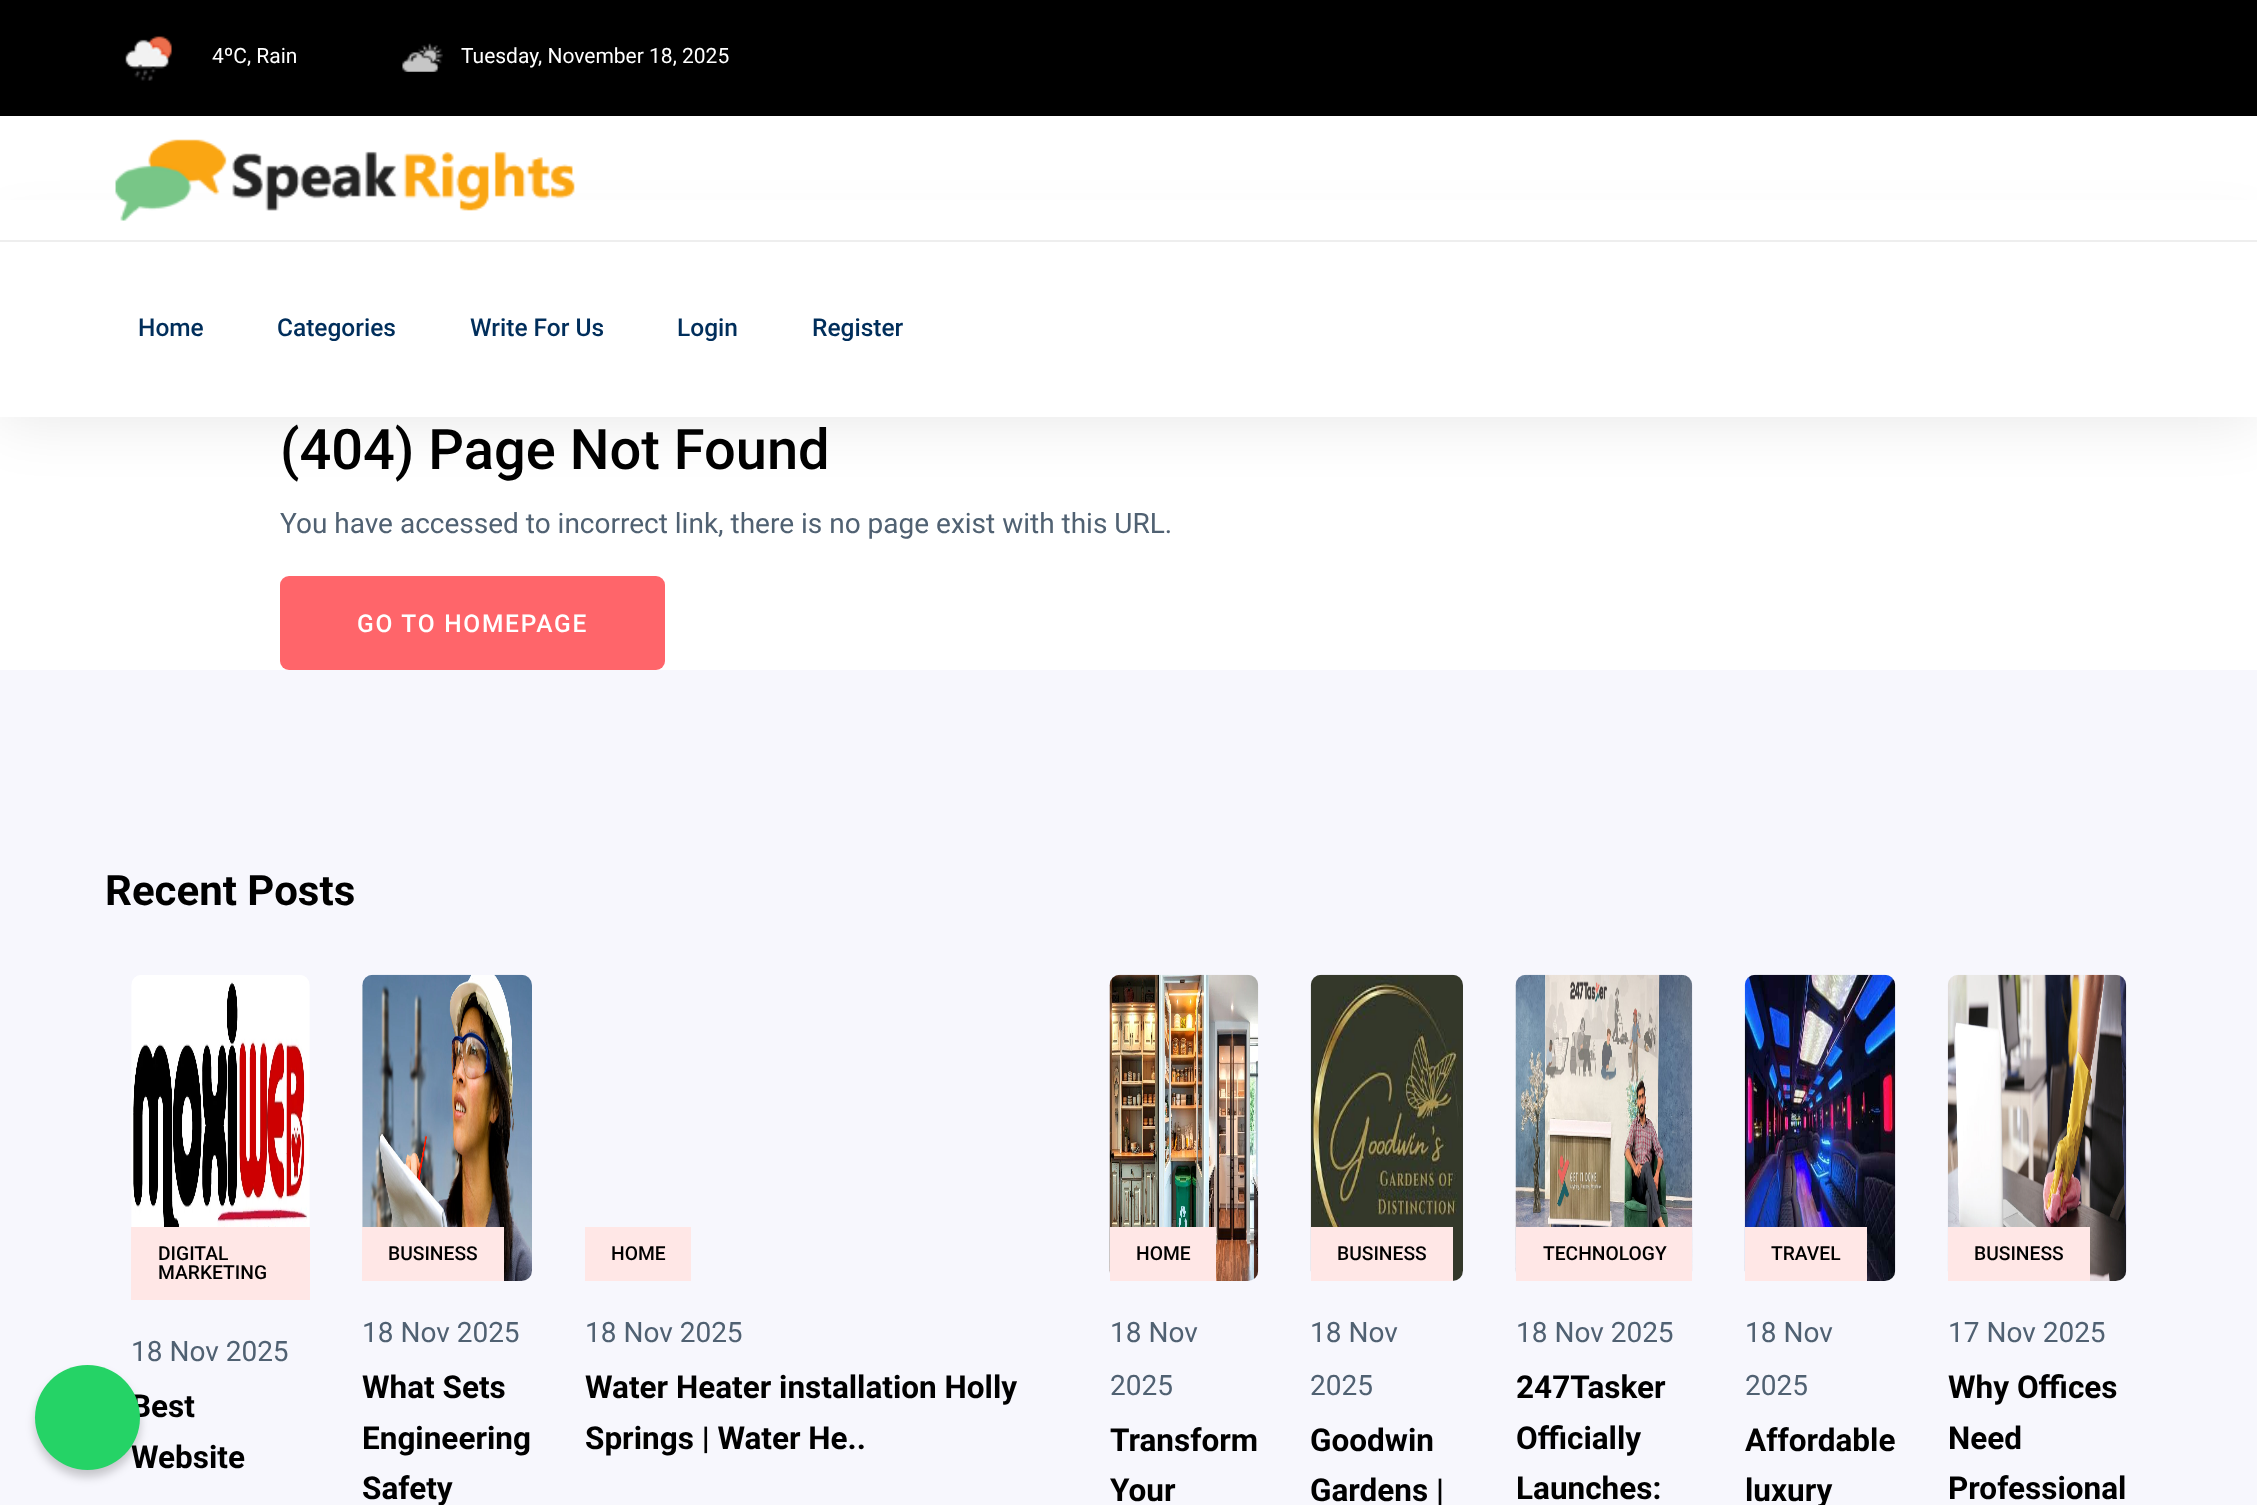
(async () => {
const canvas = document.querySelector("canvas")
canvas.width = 2257
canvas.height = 1505
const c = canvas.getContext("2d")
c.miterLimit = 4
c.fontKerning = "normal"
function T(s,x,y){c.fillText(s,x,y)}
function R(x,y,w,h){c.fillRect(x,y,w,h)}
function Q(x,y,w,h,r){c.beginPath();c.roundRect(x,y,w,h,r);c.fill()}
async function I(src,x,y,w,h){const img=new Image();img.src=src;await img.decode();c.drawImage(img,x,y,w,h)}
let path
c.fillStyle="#fff"
R(0,0,2257,1505)
c.fillStyle="#000"
R(0,0,2257,116)
await I("1.png",125,36,47,45)
c.font="21px Roboto"
c.fillStyle="#fff"
T("4ºC, Rain",212,63)
await I("2.png",402,43,41,29)
T("Tuesday, November 18, 2025",461,63)
c.save()
path = new Path2D("M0 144h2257v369h-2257zm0 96h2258v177h-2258z")
c.clip(path,"evenodd")
c.fillStyle="#0000001a"
c.filter="blur(31.5px)"
c.beginPath()
c.rect(0,240,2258,177)
c.fill()
c.filter="none"
c.restore()
R(0,200,2257,40)
await I("3.png",115,139,460,82)
c.fillStyle="#eee"
R(0,240,2257,2)
c.font="500 24.5px Roboto"
c.fillStyle="#002e5b"
T("Home",138,336)
T("Categories",277,336)
T("Write For Us",470,336)
T("Login",677,336)
T("Register",812,336)
c.font="500 56px Roboto"
c.fillStyle="#000"
T("(404) Page Not Found",280,469)
c.font="28px Roboto"
c.fillStyle="#506172"
T("You have accessed to incorrect link, there is no page exist with this URL.",280,533)
c.fillStyle="#ff656a"
Q(280,576,385,94,9)
c.letterSpacing="1.75px"
c.font="500 24.5px Roboto"
c.fillStyle="#fff"
T("GO TO HOMEPAGE",357,632)
c.fillStyle="#f7f7fd"
R(0,670,2257,835)
c.fillStyle="#00000033"
c.filter="blur(5px)"
c.beginPath()
c.roundRect(35,1372,105,105,52.5)
c.fill()
c.filter="none"
c.letterSpacing="0px"
c.font="bold 31.5px Roboto"
c.fillStyle="#000"
T("Best",131,1417)
T("Website",131,1468)
c.fillStyle="#25d366"
c.beginPath()
c.arc(87.5,1417.5,52.5,0,7)
c.fill()
c.font="bold 42px Roboto"
c.fillStyle="#000"
T("Recent Posts",105,905)
await I("4.png",131,975,179,252)
c.fillStyle="#ffe7e6"
R(131,1227,179,73)
c.font="500 19.25px Roboto"
c.fillStyle="#000"
T("DIGITAL",158,1260)
T("MARKETING",158,1279)
c.font="28px Roboto"
c.fillStyle="#506172"
T("18 Nov 2025",131,1361)
await I("5.png",362,974,170,307)
c.fillStyle="#ffe7e6"
R(362,1227,142,54)
c.font="500 19.25px Roboto"
c.fillStyle="#000"
T("BUSINESS",388,1260)
c.font="28px Roboto"
c.fillStyle="#506172"
T("18 Nov 2025",362,1342)
c.font="bold 31.5px Roboto"
c.fillStyle="#000"
T("What Sets",362,1398)
T("Engineering",362,1449)
T("Safety",362,1499)
c.fillStyle="#ffe7e6"
R(585,1227,106,54)
c.font="500 19.25px Roboto"
c.fillStyle="#000"
T("HOME",611,1260)
c.font="28px Roboto"
c.fillStyle="#506172"
T("18 Nov 2025",585,1342)
c.font="bold 31.5px Roboto"
c.fillStyle="#000"
T("Water Heater installation Holly",585,1398)
T("Springs | Water He..",585,1449)
await I("6.png",1109,974,150,307)
c.fillStyle="#ffe7e6"
R(1110,1227,106,54)
c.font="500 19.25px Roboto"
c.fillStyle="#000"
T("HOME",1136,1260)
c.font="28px Roboto"
c.fillStyle="#506172"
T("18 Nov",1110,1342)
T("2025",1110,1395)
c.font="bold 31.5px Roboto"
c.fillStyle="#000"
T("Transform",1110,1451)
T("Your",1110,1501)
await I("7.png",1310,974,153,307)
c.fillStyle="#ffe7e6"
R(1311,1227,142,54)
c.font="500 19.25px Roboto"
c.fillStyle="#000"
T("BUSINESS",1337,1260)
c.font="28px Roboto"
c.fillStyle="#506172"
T("18 Nov",1310,1342)
T("2025",1310,1395)
c.font="bold 31.5px Roboto"
c.fillStyle="#000"
T("Goodwin",1310,1451)
T("Gardens |",1310,1501)
await I("8.png",1515,974,178,299)
c.fillStyle="#ffe7e6"
R(1516,1227,176,54)
c.font="500 19.25px Roboto"
c.fillStyle="#000"
T("TECHNOLOGY",1543,1260)
c.font="28px Roboto"
c.fillStyle="#506172"
T("18 Nov 2025",1516,1342)
c.font="bold 31.5px Roboto"
c.fillStyle="#000"
T("247Tasker",1516,1398)
T("Officially",1516,1449)
T("Launches:",1516,1499)
await I("9.png",1744,974,152,307)
c.fillStyle="#ffe7e6"
R(1745,1227,122,54)
c.font="500 19.25px Roboto"
c.fillStyle="#000"
T("TRAVEL",1771,1260)
c.font="28px Roboto"
c.fillStyle="#506172"
T("18 Nov",1745,1342)
T("2025",1745,1395)
c.font="bold 31.5px Roboto"
c.fillStyle="#000"
T("Affordable",1745,1451)
T("luxury",1745,1501)
await I("10.png",1947,974,180,307)
c.fillStyle="#ffe7e6"
R(1948,1227,142,54)
c.font="500 19.25px Roboto"
c.fillStyle="#000"
T("BUSINESS",1974,1260)
c.font="28px Roboto"
c.fillStyle="#506172"
T("17 Nov 2025",1948,1342)
c.font="bold 31.5px Roboto"
c.fillStyle="#000"
T("Why Offices",1948,1398)
T("Need",1948,1449)
T("Professional",1948,1499)
})()
